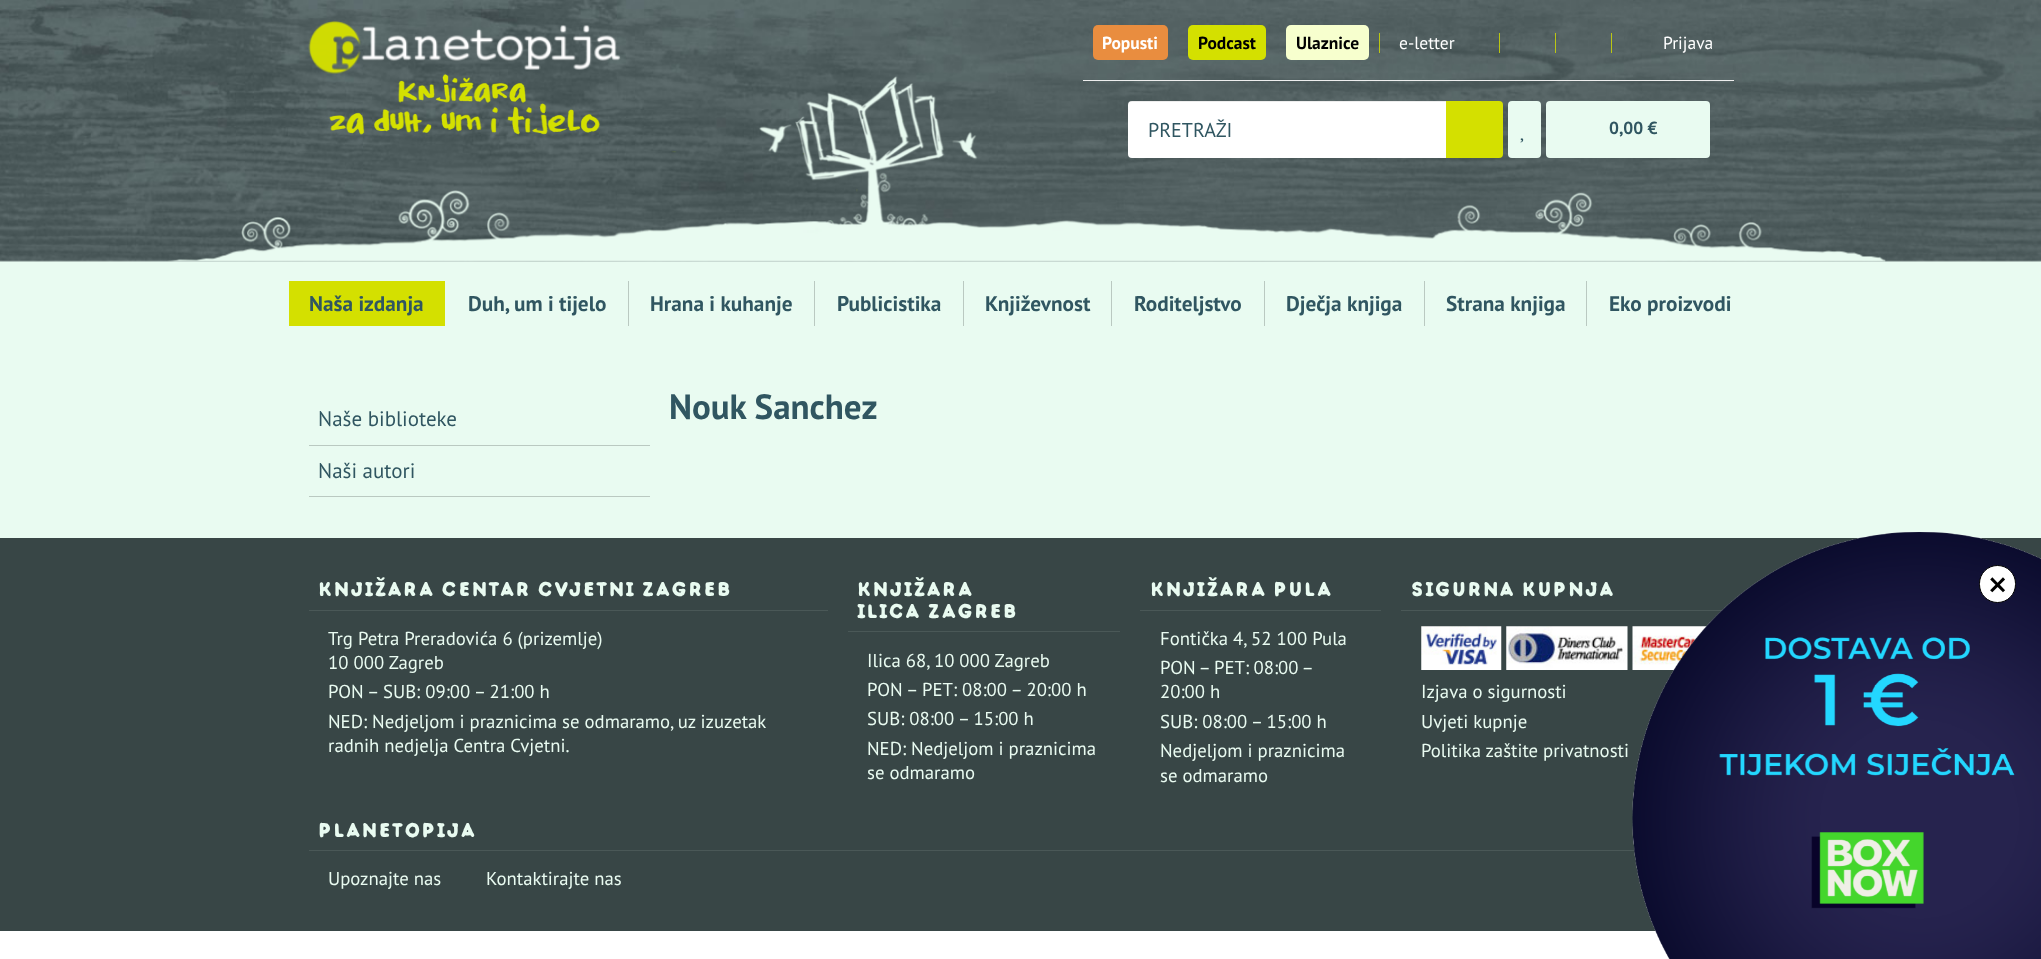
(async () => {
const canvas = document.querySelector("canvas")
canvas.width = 2041
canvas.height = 959
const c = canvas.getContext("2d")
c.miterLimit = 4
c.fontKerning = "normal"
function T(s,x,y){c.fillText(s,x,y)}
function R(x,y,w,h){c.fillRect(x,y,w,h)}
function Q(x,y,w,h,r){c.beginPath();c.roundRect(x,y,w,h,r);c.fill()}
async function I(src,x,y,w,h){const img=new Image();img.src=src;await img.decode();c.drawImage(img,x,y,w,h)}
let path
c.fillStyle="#e9fbf1"
R(0,0,2041,959)
await I("1.png",0,0,2041,262)
await I("2.png",308,21,313,53)
await I("5.png",167,76,1719,186)
await I("3.png",329,74,271,61)
c.fillStyle="#eee"
R(1083,80,651,1)
c.fillStyle="#e98d3f"
Q(1093,25,75,35,5)
c.font="bold 17.5px PT Sans"
c.fillStyle="#fff"
T("Popusti",1102,49)
c.fillStyle="#d4e000"
Q(1188,25,78,35,5)
c.fillStyle="#000"
T("Podcast",1198,49)
c.fillStyle="#f7ffce"
Q(1286,25,83,35,5)
c.fillStyle="#000"
T("Ulaznice",1296,49)
c.fillStyle="#d4e000cc"
R(1379,33,1,20)
c.font="17.5px PT Sans"
c.fillStyle="#fff"
T("e-letter",1399,49)
c.fillStyle="#d4e000cc"
R(1499,33,1,20)
R(1555,33,1,20)
R(1611,33,1,20)
c.fillStyle="#fff"
T("Prijava",1663,49)
c.beginPath()
c.roundRect(1128,101,318,57,[4,0,0,4])
c.fill()
c.fillStyle="#00000012"
path = new Path2D("M1131 102h315v-1h-314c-2 0-4 2-4 4v1c0-2 1-4 3-4z")
c.fill(path)
c.font="20px PT Sans"
c.fillStyle="#305661"
T("PRETRAŽI",1148,137)
c.fillStyle="#d4e000"
c.beginPath()
c.roundRect(1446,101,57,57,[0,4,4,0])
c.fill()
c.fillStyle="#e9fbf1"
Q(1508,101,33,57,4)
await I("4.png",1520,138,4,5)
Q(1546,101,164,57,4)
c.font="bold 17.5px PT Sans"
c.fillStyle="#305661"
T("0,00 €",1609,134)
c.fillStyle="#d4e000"
R(289,281,156,45)
c.font="bold 21.25px PT Sans"
c.fillStyle="#305661"
T("Naša izdanja",309,311)
T("Duh, um i tijelo",468,311)
c.fillStyle="#bac9c1"
R(628,281,1,45)
c.fillStyle="#305661"
T("Hrana i kuhanje",650,311)
c.fillStyle="#bac9c1"
R(814,281,1,45)
c.fillStyle="#305661"
T("Publicistika",837,311)
c.fillStyle="#bac9c1"
R(963,281,1,45)
c.fillStyle="#305661"
T("Književnost",985,311)
c.fillStyle="#bac9c1"
R(1111,281,1,45)
c.fillStyle="#305661"
T("Roditeljstvo",1134,311)
c.fillStyle="#bac9c1"
R(1264,281,1,45)
c.fillStyle="#305661"
T("Dječja knjiga",1286,311)
c.fillStyle="#bac9c1"
R(1424,281,1,45)
c.fillStyle="#305661"
T("Strana knjiga",1446,311)
c.fillStyle="#bac9c1"
R(1586,281,1,45)
c.fillStyle="#305661"
T("Eko proizvodi",1609,311)
c.font="bold 35px PT Sans"
T("Nouk Sanchez",669,419)
c.fillStyle="#bac9c1"
R(309,445,341,1)
c.font="21px PT Sans"
c.fillStyle="#305661"
T("Naše biblioteke",318,426)
c.fillStyle="#bac9c1"
R(309,496,341,1)
c.fillStyle="#305661"
T("Naši autori",318,478)
c.fillStyle="#384646"
R(0,538,2041,393)
c.fillStyle="#4a5857"
R(309,610,519,1)
c.letterSpacing="1.25px"
c.font="20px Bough"
c.fillStyle="#e9fbf1"
T("knjižara centar cvjetni zagreb",318,596)
c.letterSpacing="0px"
c.font="18.75px PT Sans"
T("Trg Petra Preradovića 6 (prizemlje)",328,645)
T("10 000 Zagreb",328,669)
T("PON – SUB: 09:00 – 21:00 h",328,698)
T("NED: Nedjeljom i praznicima se odmaramo, uz izuzetak",328,728)
T("radnih nedjelja Centra Cvjetni.",328,752)
c.fillStyle="#4a5857"
R(848,631,272,1)
c.letterSpacing="1.25px"
c.font="20px Bough"
c.fillStyle="#e9fbf1"
T("knjižara",857,596)
T("ilica zagreb",857,618)
c.letterSpacing="0px"
c.font="18.75px PT Sans"
T("Ilica 68, 10 000 Zagreb",867,667)
T("PON – PET: 08:00 – 20:00 h",867,696)
T("SUB: 08:00 – 15:00 h",867,725)
T("NED: Nedjeljom i praznicima",867,755)
T("se odmaramo",867,779)
c.fillStyle="#4a5857"
R(1140,610,241,1)
c.letterSpacing="1.25px"
c.font="20px Bough"
c.fillStyle="#e9fbf1"
T("knjižara pula",1150,596)
c.letterSpacing="0px"
c.font="18.75px PT Sans"
T("Fontička 4, 52 100 Pula",1160,645)
c.wordSpacing="-0.5px"
T("PON – PET: 08:00 –",1160,674)
c.wordSpacing="0px"
T("20:00 h",1160,698)
T("SUB: 08:00 – 15:00 h",1160,728)
T("Nedjeljom i praznicima",1160,757)
T("se odmaramo",1160,782)
c.fillStyle="#4a5857"
R(1401,610,322,1)
c.letterSpacing="1.25px"
c.font="20px Bough"
c.fillStyle="#e9fbf1"
T("sigurna kupnja",1411,596)
await I("6.png",1421,626,81,44)
await I("7.png",1506,626,122,44)
await I("8.png",1632,626,75,44)
c.letterSpacing="0px"
c.font="18.75px PT Sans"
T("Izjava o sigurnosti",1421,698)
T("Uvjeti kupnje",1421,728)
T("Politika zaštite privatnosti",1421,757)
c.fillStyle="#4a5857"
R(309,850,1326,1)
c.letterSpacing="1.25px"
c.font="20px Bough"
c.fillStyle="#e9fbf1"
T("planetopija",318,837)
c.letterSpacing="0px"
c.font="18.75px PT Sans"
T("Upoznajte nas",328,885)
T("Kontaktirajte nas",486,885)
c.fillStyle="#fff"
R(0,931,2041,28)
await I("9.png",1632,532,409,427)
c.beginPath()
c.roundRect(1979.5,565.5,36,37,18)
c.fill()
c.strokeStyle="#000"
c.stroke()
c.font="42px PT Sans"
c.fillStyle="#000"
T("×",1987,599)
})()
